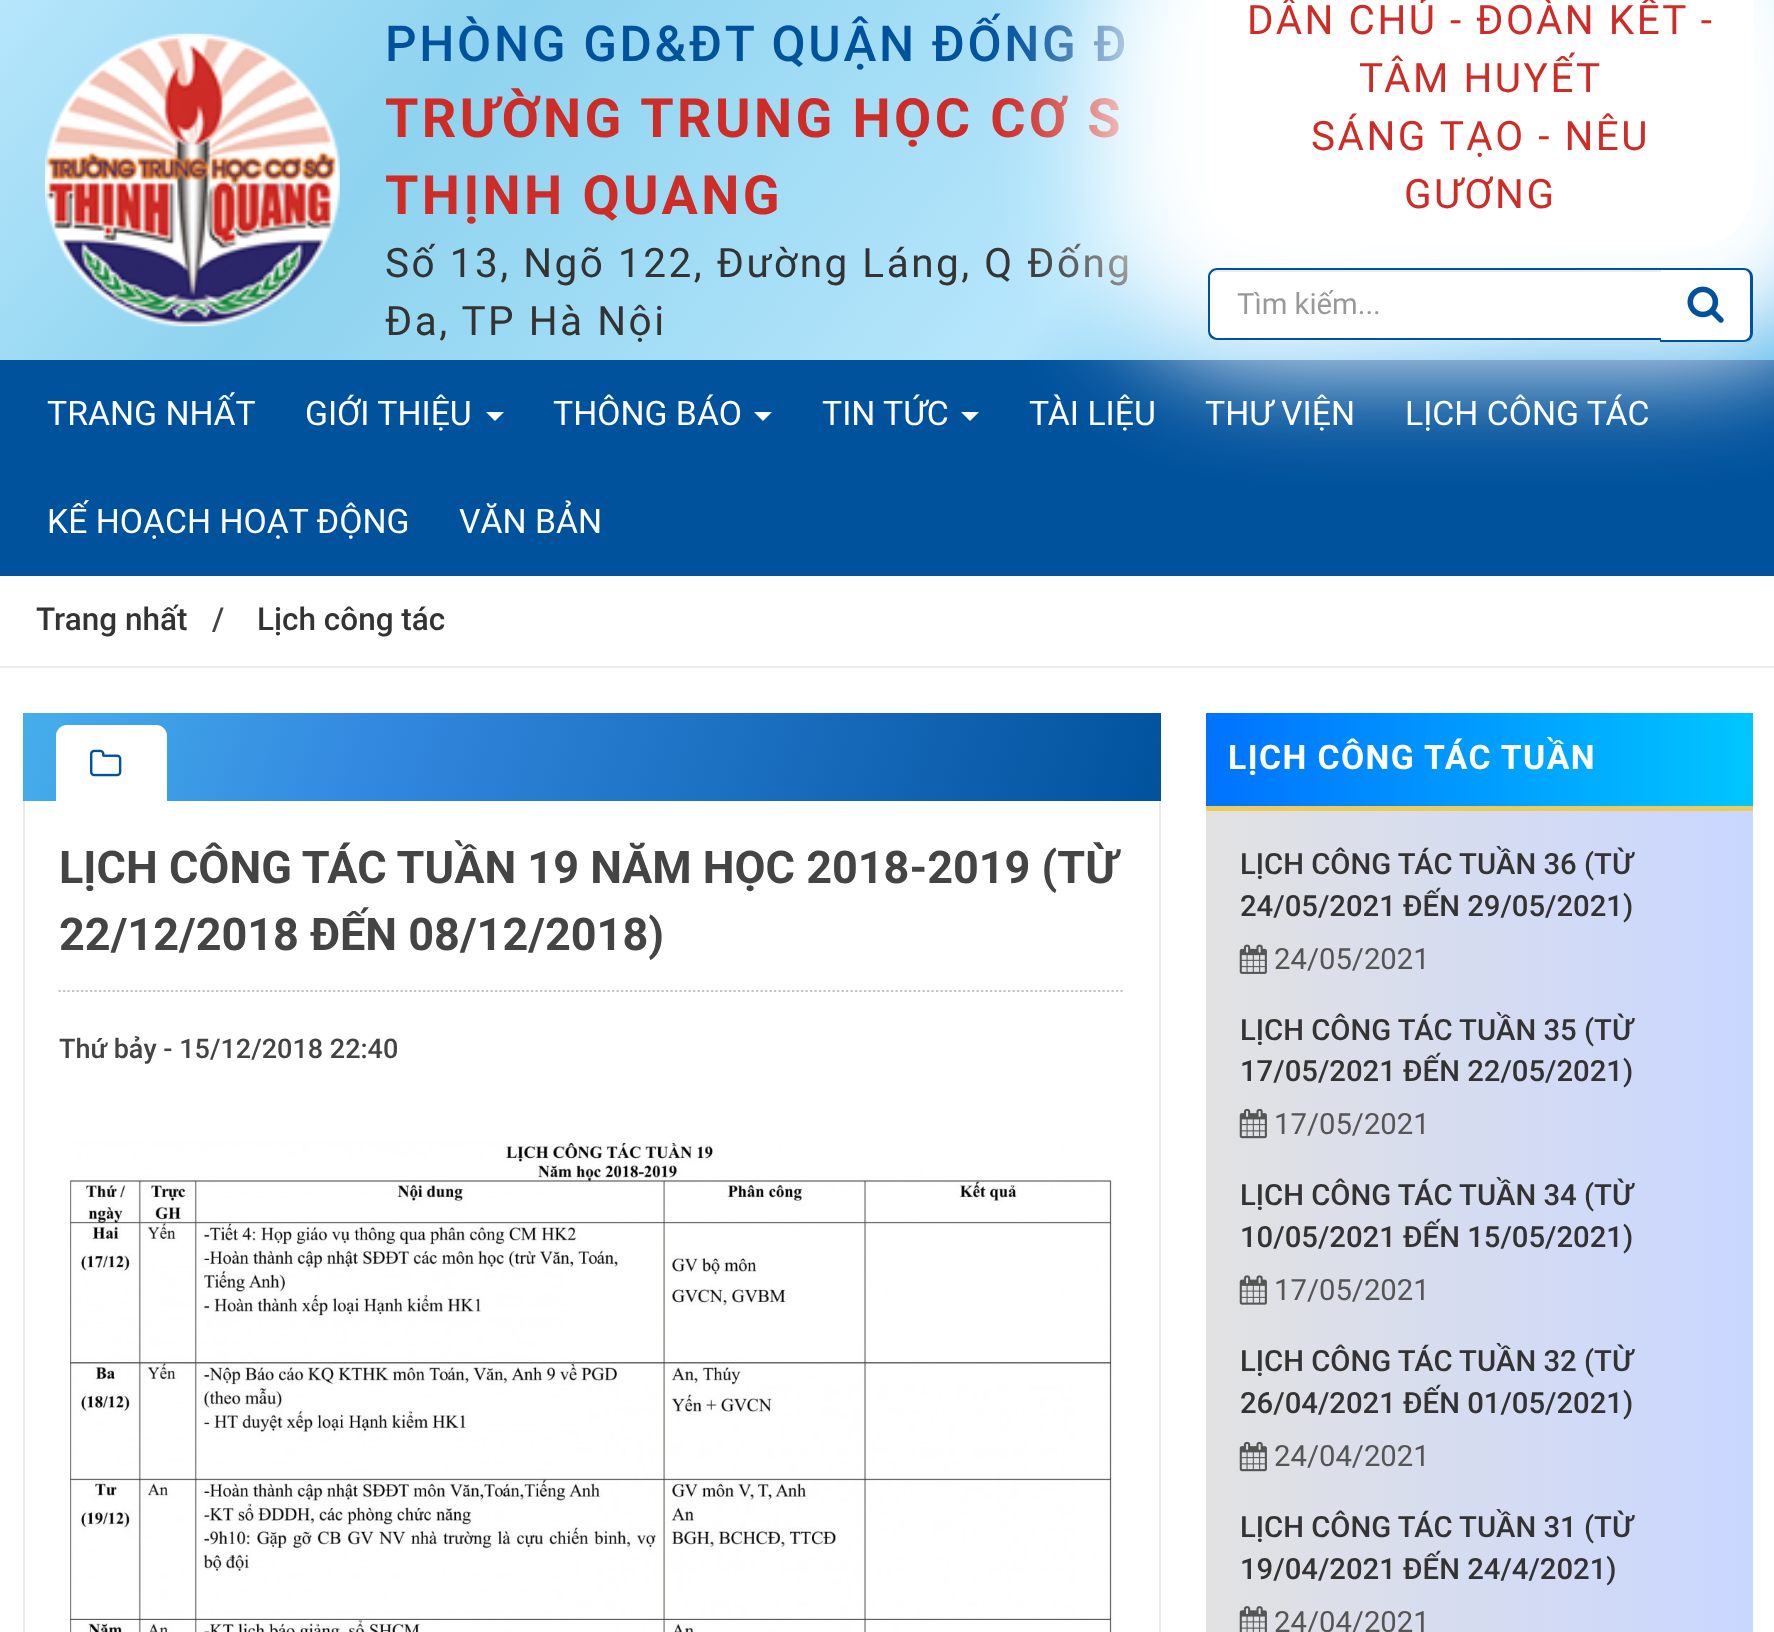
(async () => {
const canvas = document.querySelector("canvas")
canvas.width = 1774
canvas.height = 1632
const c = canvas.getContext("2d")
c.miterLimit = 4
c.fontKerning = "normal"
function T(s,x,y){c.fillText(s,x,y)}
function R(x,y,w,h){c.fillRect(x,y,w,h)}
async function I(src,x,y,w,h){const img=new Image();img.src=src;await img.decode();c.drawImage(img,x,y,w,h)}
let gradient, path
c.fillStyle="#fff"
R(0,0,1774,1632)
gradient = c.createLinearGradient(1497,691,278,-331)
gradient.addColorStop(.11,"#46aeeb")
gradient.addColorStop(.37,"#b6e6fc")
gradient.addColorStop(.75,"#8ed3ef")
gradient.addColorStop(1,"#b6e6fc")
c.fillStyle = gradient
R(0,0,1774,360)
await I("1.png",45,33,295,294)
c.letterSpacing="2.7px"
c.font="500 49.5px Roboto"
c.fillStyle="#01529d"
T("PHÒNG GD&ĐT QUẬN ĐỐNG Đ",385,61)
c.letterSpacing="3.4px"
c.font="bold 54px Roboto"
c.fillStyle="#ce2c27"
T("TRƯỜNG TRUNG HỌC CƠ S",385,137)
T("THỊNH QUANG",385,214)
c.letterSpacing="2.5px"
c.font="40.5px Roboto"
c.fillStyle="#333"
T("Số 13, Ngõ 122, Đường Láng, Q Đống",385,277)
T("Đa, TP Hà Nội",385,335)
c.fillStyle="#01529d"
R(0,360,1774,216)
c.fillStyle="#fff"
c.filter="blur(56px)"
c.beginPath()
c.roundRect(1096,-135,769,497,169)
c.fill()
c.filter="none"
path = new Path2D("M1208-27h545v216c0 31-25 56-56 56h-433c-31 0-56-25-56-56z")
c.fill(path)
c.fillStyle="#ce2c27"
T("DÂN CHỦ - ĐOÀN KẾT -",1247,34)
T("TÂM HUYẾT",1359,92)
T("SÁNG TẠO - NÊU",1311,150)
T("GƯƠNG",1404,208)
c.fillStyle="#fff"
c.beginPath()
c.roundRect(1208,268,455,72,[9,0,0,9])
c.fill()
c.fillStyle="#ececec"
path = new Path2D("M1217 272h446v-2h-445c-3 0-6 2-7 5c2-2 4-3 6-3z")
c.fill(path)
c.fillStyle="#01529d"
path = new Path2D("M1217 268h446v72h-446c-5 0-9-4-9-9v-54c0-5 4-9 9-9zm0 2h446v68h-446c-3 0-7-4-7-7v-54c0-4 4-7 7-7z")
c.fill(path,"evenodd")
c.letterSpacing="0px"
c.font="29.25px Roboto"
c.fillStyle="#999"
T("Tìm kiếm...",1237,314)
c.fillStyle="#fff"
c.beginPath()
c.roundRect(1661,268,92,74,[0,9,9,0])
c.fill()
c.fillStyle="#01529d"
path = new Path2D("M1660 268h84c5 0 9 4 9 9v56c0 5-4 9-9 9h-84zm0 2h84c3 0 6 3 6 7v56c0 4-3 7-6 7h-84z")
c.fill(path,"evenodd")
await I("2.png",1687,286,37,37)
c.font="33.75px Roboto"
c.fillStyle="#fff"
T("TRANG NHẤT",47,425)
T("GIỚI THIỆU",305,425)
path = new Path2D("M486 412h18l-9 9z")
c.fill(path)
T("THÔNG BÁO",553,425)
path = new Path2D("M754 412h18l-9 9z")
c.fill(path)
T("TIN TỨC",822,425)
path = new Path2D("M961 412h18l-9 9z")
c.fill(path)
T("TÀI LIỆU",1029,425)
T("THƯ VIỆN",1205,425)
T("LỊCH CÔNG TÁC",1405,425)
T("KẾ HOẠCH HOẠT ĐỘNG",47,533)
T("VĂN BẢN",459,533)
c.fillStyle="#ebebeb"
R(0,666,1774,2)
c.font="500 31.5px Roboto"
c.fillStyle="#333"
T("Trang nhất",36,630)
c.fillStyle="#444"
T("/",212,630)
c.fillStyle="#333"
T("Lịch công tác",257,630)
c.strokeStyle="#eaeaea"
c.lineWidth=2
c.strokeRect(24,714,1136,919)
gradient = c.createLinearGradient(64,586,1120,929)
gradient.addColorStop(0,"#46aeeb")
gradient.addColorStop(.3,"#3389e0")
gradient.addColorStop(1,"#01529d")
c.fillStyle = gradient
R(23,713,1138,88)
c.fillStyle="#fff"
c.beginPath()
c.roundRect(56,725,111,76,[11,11,0,0])
c.fill()
await I("3.png",90,749,32,28)
path = new Path2D("M58.5 991h1066.5")
c.strokeStyle="#c4c4c4"
c.lineWidth=2.2
c.setLineDash([2.25,2.25])
c.stroke(path)
c.font="bold 45px Roboto"
c.fillStyle="#444"
T("LỊCH CÔNG TÁC TUẦN 19 NĂM HỌC 2018-2019 (TỪ",59,883)
T("22/12/2018 ĐẾN 08/12/2018)",59,950)
c.font="500 27px Roboto"
T("Thứ bảy - 15/12/2018 22:40",59,1058)
await I("4.png",70,1141,1044,491)
gradient = c.createLinearGradient(1206,1211,1753,1211)
gradient.addColorStop(0,"#e2e2e2")
gradient.addColorStop(1,"#c9d6ff")
c.fillStyle = gradient
R(1206,811,547,821)
gradient = c.createLinearGradient(1206,759,1753,759)
gradient.addColorStop(0,"#0072ff")
gradient.addColorStop(1,"#00c6ff")
c.fillStyle = gradient
R(1206,713,547,93)
c.fillStyle="#edcc5d"
R(1206,806,547,5)
c.letterSpacing="1.4px"
c.font="bold 33.75px Roboto"
c.fillStyle="#fff"
T("LỊCH CÔNG TÁC TUẦN",1228,769)
c.letterSpacing="0px"
c.font="500 29.25px Roboto"
c.fillStyle="#333"
T("LỊCH CÔNG TÁC TUẦN 36 (TỪ",1240,874)
T("24/05/2021 ĐẾN 29/05/2021)",1240,916)
await I("5.png",1239,944,28,30)
c.font="29.25px Roboto"
c.fillStyle="#555"
T("24/05/2021",1274,969)
c.font="500 29.25px Roboto"
c.fillStyle="#333"
T("LỊCH CÔNG TÁC TUẦN 35 (TỪ",1240,1040)
T("17/05/2021 ĐẾN 22/05/2021)",1240,1081)
await I("6.png",1239,1108,28,31)
c.font="29.25px Roboto"
c.fillStyle="#555"
T("17/05/2021",1274,1134)
c.font="500 29.25px Roboto"
c.fillStyle="#333"
T("LỊCH CÔNG TÁC TUẦN 34 (TỪ",1240,1205)
T("10/05/2021 ĐẾN 15/05/2021)",1240,1247)
await I("7.png",1239,1275,28,30)
c.font="29.25px Roboto"
c.fillStyle="#555"
T("17/05/2021",1274,1300)
c.font="500 29.25px Roboto"
c.fillStyle="#333"
T("LỊCH CÔNG TÁC TUẦN 32 (TỪ",1240,1371)
T("26/04/2021 ĐẾN 01/05/2021)",1240,1413)
await I("6.png",1239,1441,28,31)
c.font="29.25px Roboto"
c.fillStyle="#555"
T("24/04/2021",1274,1466)
c.font="500 29.25px Roboto"
c.fillStyle="#333"
T("LỊCH CÔNG TÁC TUẦN 31 (TỪ",1240,1537)
T("19/04/2021 ĐẾN 24/4/2021)",1240,1579)
await I("8.png",1239,1606,28,26)
c.font="29.25px Roboto"
c.fillStyle="#555"
T("24/04/2021",1274,1632)
})()
